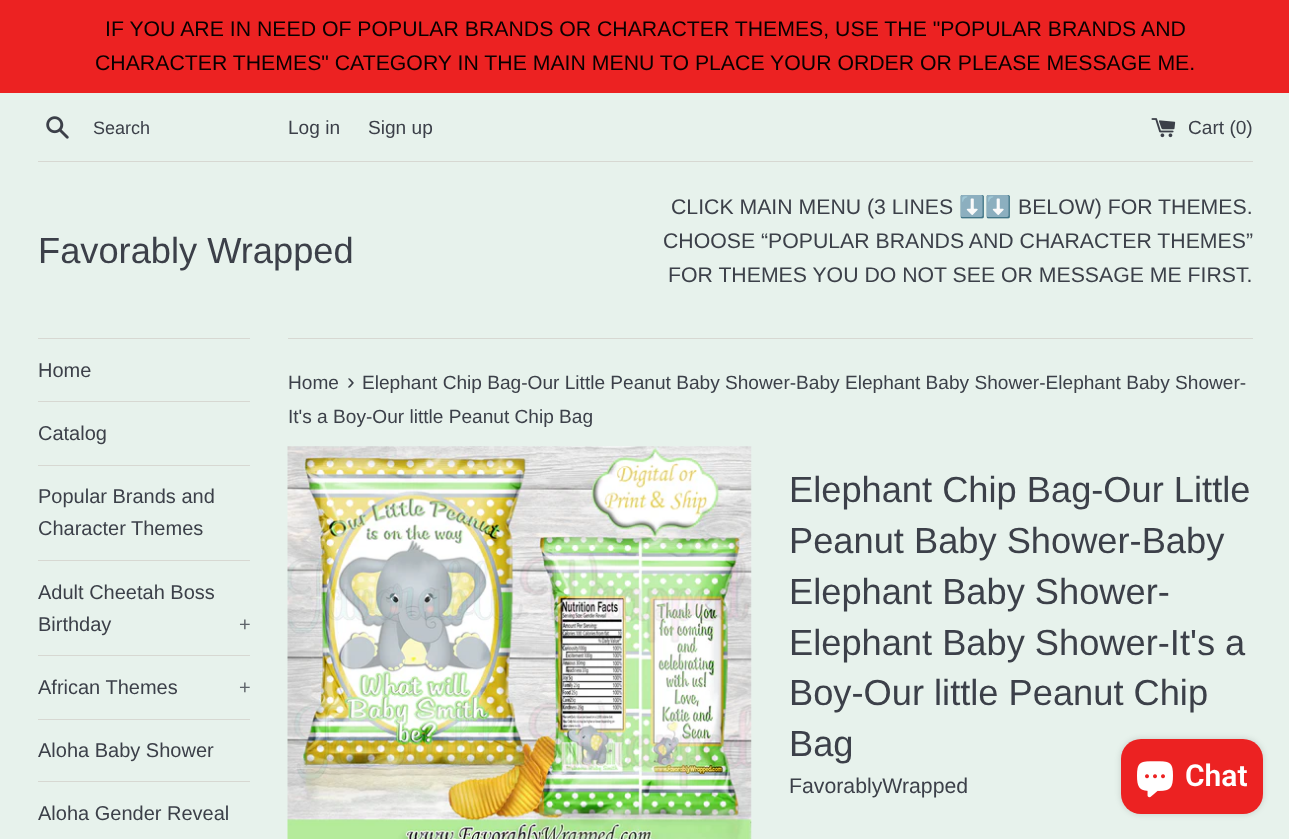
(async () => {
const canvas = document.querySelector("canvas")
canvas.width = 1289
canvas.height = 839
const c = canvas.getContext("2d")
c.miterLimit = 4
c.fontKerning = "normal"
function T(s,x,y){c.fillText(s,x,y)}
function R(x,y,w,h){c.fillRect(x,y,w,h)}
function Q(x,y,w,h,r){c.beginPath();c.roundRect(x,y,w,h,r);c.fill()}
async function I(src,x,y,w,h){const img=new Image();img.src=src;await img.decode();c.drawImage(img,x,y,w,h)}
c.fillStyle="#e7f2ec"
R(0,0,1289,839)
c.fillStyle="#ec2222"
R(0,0,1289,93)
c.font="21.25px Liberation Sans"
c.fillStyle="#090000"
T("IF YOU ARE IN NEED OF POPULAR BRANDS OR CHARACTER THEMES, USE THE \"POPULAR BRANDS AND",105,36)
T("CHARACTER THEMES\" CATEGORY IN THE MAIN MENU TO PLACE YOUR ORDER OR PLEASE MESSAGE ME.",95,70)
await I("1.png",46,116,23,23)
c.font="18px Liberation Sans"
c.fillStyle="#3c4049"
T("Search",93,134)
c.font="19.1px Liberation Sans"
T("Log in",288,134)
T("Sign up",368,134)
await I("2.png",1151,118,25,20)
T("Cart (0)",1188,134)
c.fillStyle="#d7d8d2"
R(38,161,1215,1)
c.font="36.25px Liberation Sans"
c.fillStyle="#3c4049"
T("Favorably Wrapped",38,263)
c.font="21.25px Liberation Sans"
T("CLICK MAIN MENU (3 LINES",671,214)
c.font="21.25px Noto Color Emoji"
T("⬇️⬇️",959,214)
c.font="21.25px Liberation Sans"
T("BELOW) FOR THEMES.",1018,214)
T("CHOOSE “POPULAR BRANDS AND CHARACTER THEMES”",663,248)
T("FOR THEMES YOU DO NOT SEE OR MESSAGE ME FIRST.",668,282)
c.fillStyle="#d7d8d2"
R(38,338,212,1)
R(38,401,212,1)
c.font="20px Liberation Sans"
c.fillStyle="#3c4049"
T("Home",38,377)
c.fillStyle="#d7d8d2"
R(38,465,212,1)
c.fillStyle="#3c4049"
T("Catalog",38,440)
c.fillStyle="#d7d8d2"
R(38,560,212,1)
c.fillStyle="#3c4049"
T("Popular Brands and",38,503)
T("Character Themes",38,535)
c.fillStyle="#d7d8d2"
R(38,655,212,1)
c.fillStyle="#3c4049"
T("Adult Cheetah Boss",38,599)
T("Birthday",38,631)
c.fillStyle="#5e646a"
T("+",239,631)
c.fillStyle="#d7d8d2"
R(38,719,212,1)
c.fillStyle="#3c4049"
T("African Themes",38,694)
c.fillStyle="#5e646a"
T("+",239,694)
c.fillStyle="#d7d8d2"
R(38,781,212,1)
c.fillStyle="#3c4049"
T("Aloha Baby Shower",38,757)
T("Aloha Gender Reveal",38,820)
c.fillStyle="#d7d8d2"
R(288,338,965,1)
c.font="19.1px Liberation Sans"
c.fillStyle="#3c4049"
T("Home",288,389)
c.font="23px Liberation Sans"
T("›",347,389)
c.font="19.1px Liberation Sans"
T("Elephant Chip Bag-Our Little Peanut Baby Shower-Baby Elephant Baby Shower-Elephant Baby Shower-",362,389)
T("It's a Boy-Our little Peanut Chip Bag",288,423)
await I("3.png",287,446,465,393)
c.font="36.25px Liberation Sans"
T("Elephant Chip Bag-Our Little",789,502)
T("Peanut Baby Shower-Baby",789,553)
T("Elephant Baby Shower-",789,604)
T("Elephant Baby Shower-It's a",789,655)
T("Boy-Our little Peanut Chip",789,705)
T("Bag",789,756)
c.font="21.25px Liberation Sans"
T("FavorablyWrapped",789,793)
c.fillStyle="#00000026"
c.filter="blur(3px)"
c.beginPath()
c.roundRect(1121,739,142,75,20)
c.fill()
c.filter="none"
c.fillStyle="#ec2222"
Q(1121,739,142,75,20)
await I("4.png",1137,761,36,37)
c.font="600 30px Roboto"
c.fillStyle="#fff"
T("Chat",1185,786)
})()
